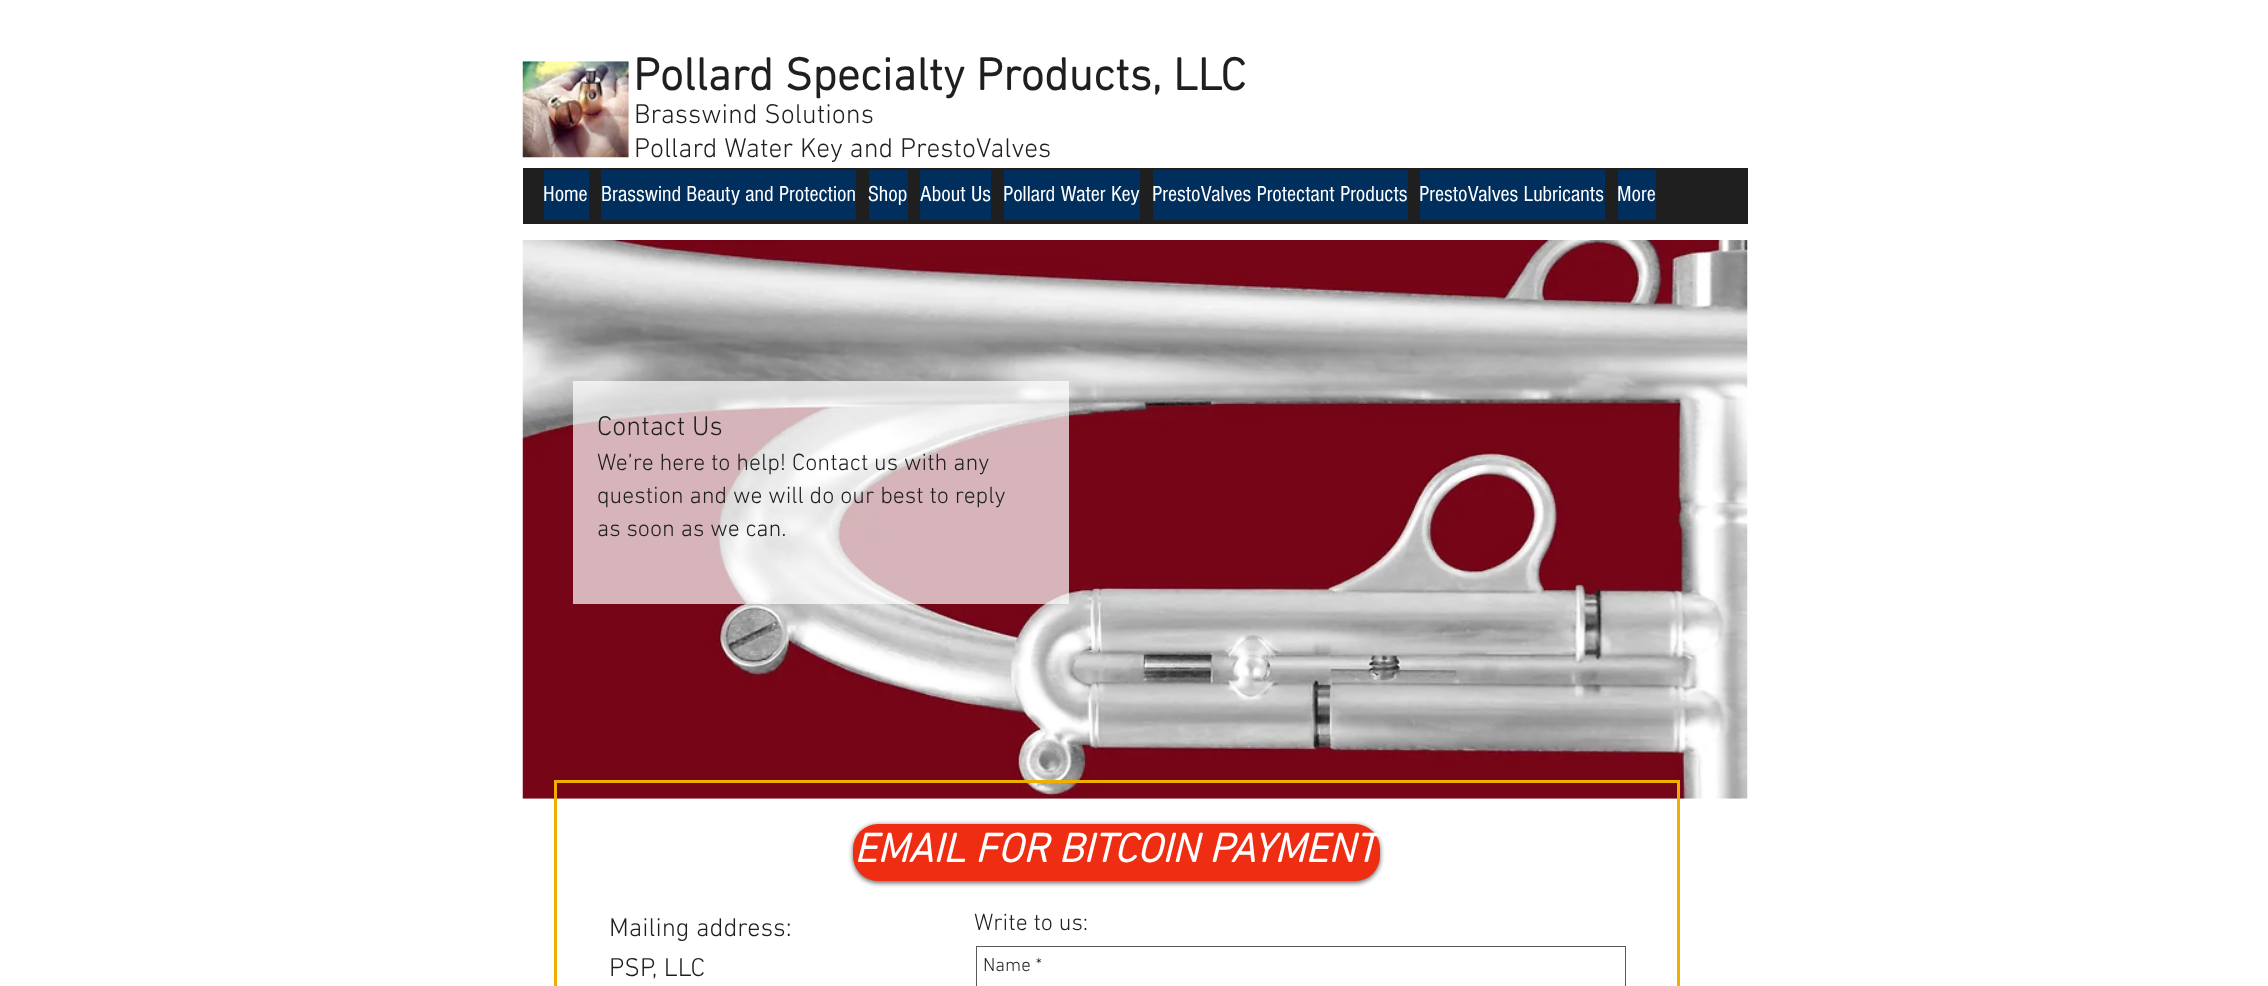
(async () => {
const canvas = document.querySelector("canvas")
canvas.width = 2268
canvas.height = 986
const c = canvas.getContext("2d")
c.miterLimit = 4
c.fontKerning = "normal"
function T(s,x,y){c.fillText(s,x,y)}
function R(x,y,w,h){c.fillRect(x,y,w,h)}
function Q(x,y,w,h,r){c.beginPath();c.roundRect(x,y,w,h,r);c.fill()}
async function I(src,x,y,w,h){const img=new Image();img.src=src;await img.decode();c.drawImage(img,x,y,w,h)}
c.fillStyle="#fff"
R(0,0,2268,986)
await I("1.png",522,61,107,97)
c.font="bold 46.25px 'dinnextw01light'"
c.fillStyle="#1f1f1f"
T("Pollard Specialty Products, LLC",633,90)
c.font="300 27.5px 'dinnextw01light'"
T("Brasswind Solutions",634,123)
T("Pollard Water Key and PrestoValves",634,157)
R(523,168,1225,56)
c.fillStyle="#002e5d"
R(544,170,45,50)
c.font="22.5px 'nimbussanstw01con'"
c.fillStyle="#fff"
T("Home",543,201)
c.fillStyle="#002e5d"
R(601,170,255,50)
c.fillStyle="#fff"
T("Brasswind Beauty and Protection",601,201)
c.fillStyle="#002e5d"
R(869,170,39,50)
c.fillStyle="#fff"
T("Shop",868,201)
c.fillStyle="#002e5d"
R(920,170,71,50)
c.fillStyle="#fff"
T("About Us",920,201)
c.fillStyle="#002e5d"
R(1004,170,136,50)
c.fillStyle="#fff"
T("Pollard Water Key",1003,201)
c.fillStyle="#002e5d"
R(1153,170,255,50)
c.fillStyle="#fff"
T("PrestoValves Protectant Products",1152,201)
c.fillStyle="#002e5d"
R(1420,170,185,50)
c.fillStyle="#fff"
T("PrestoValves Lubricants",1419,201)
c.fillStyle="#002e5d"
R(1618,170,38,50)
c.fillStyle="#fff"
T("More",1617,201)
await I("2.png",522,240,1226,559)
c.fillStyle="#ffffffb3"
R(573,381,496,223)
c.font="300 27.5px 'dinnextw01light'"
c.fillStyle="#1f1f1f"
T("Contact Us",597,435)
c.font="300 23.75px 'dinnextw01light'"
T("We’re here to help! Contact us with any",597,470)
T("question and we will do our best to reply",597,503)
T("as soon as we can.",597,536)
c.strokeStyle="#f0ae00"
c.lineWidth=3
c.strokeRect(555.5,781.5,1123,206)
c.fillStyle="#00000099"
c.filter="blur(2.5px)"
c.beginPath()
c.roundRect(853,825,527,58,25)
c.fill()
c.filter="none"
c.fillStyle="#ee2d13"
Q(853,824,527,57,25)
c.font="italic bold 41.25px 'dinnextw01light'"
c.fillStyle="#fff"
T("EMAIL FOR BITCOIN PAYMENT",854,862)
c.font="300 26.25px 'dinnextw01light'"
c.fillStyle="#1f1f1f"
T("Mailing address:",609,936)
T("PSP, LLC",609,976)
c.font="300 23.75px 'dinnextw01light'"
T("Write to us:",974,930)
c.strokeStyle="#5a5a5a"
c.lineWidth=1
c.strokeRect(976.5,946.5,649,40)
c.font="300 19px 'dinnextw01light'"
T("Name *",983,971)
})()
